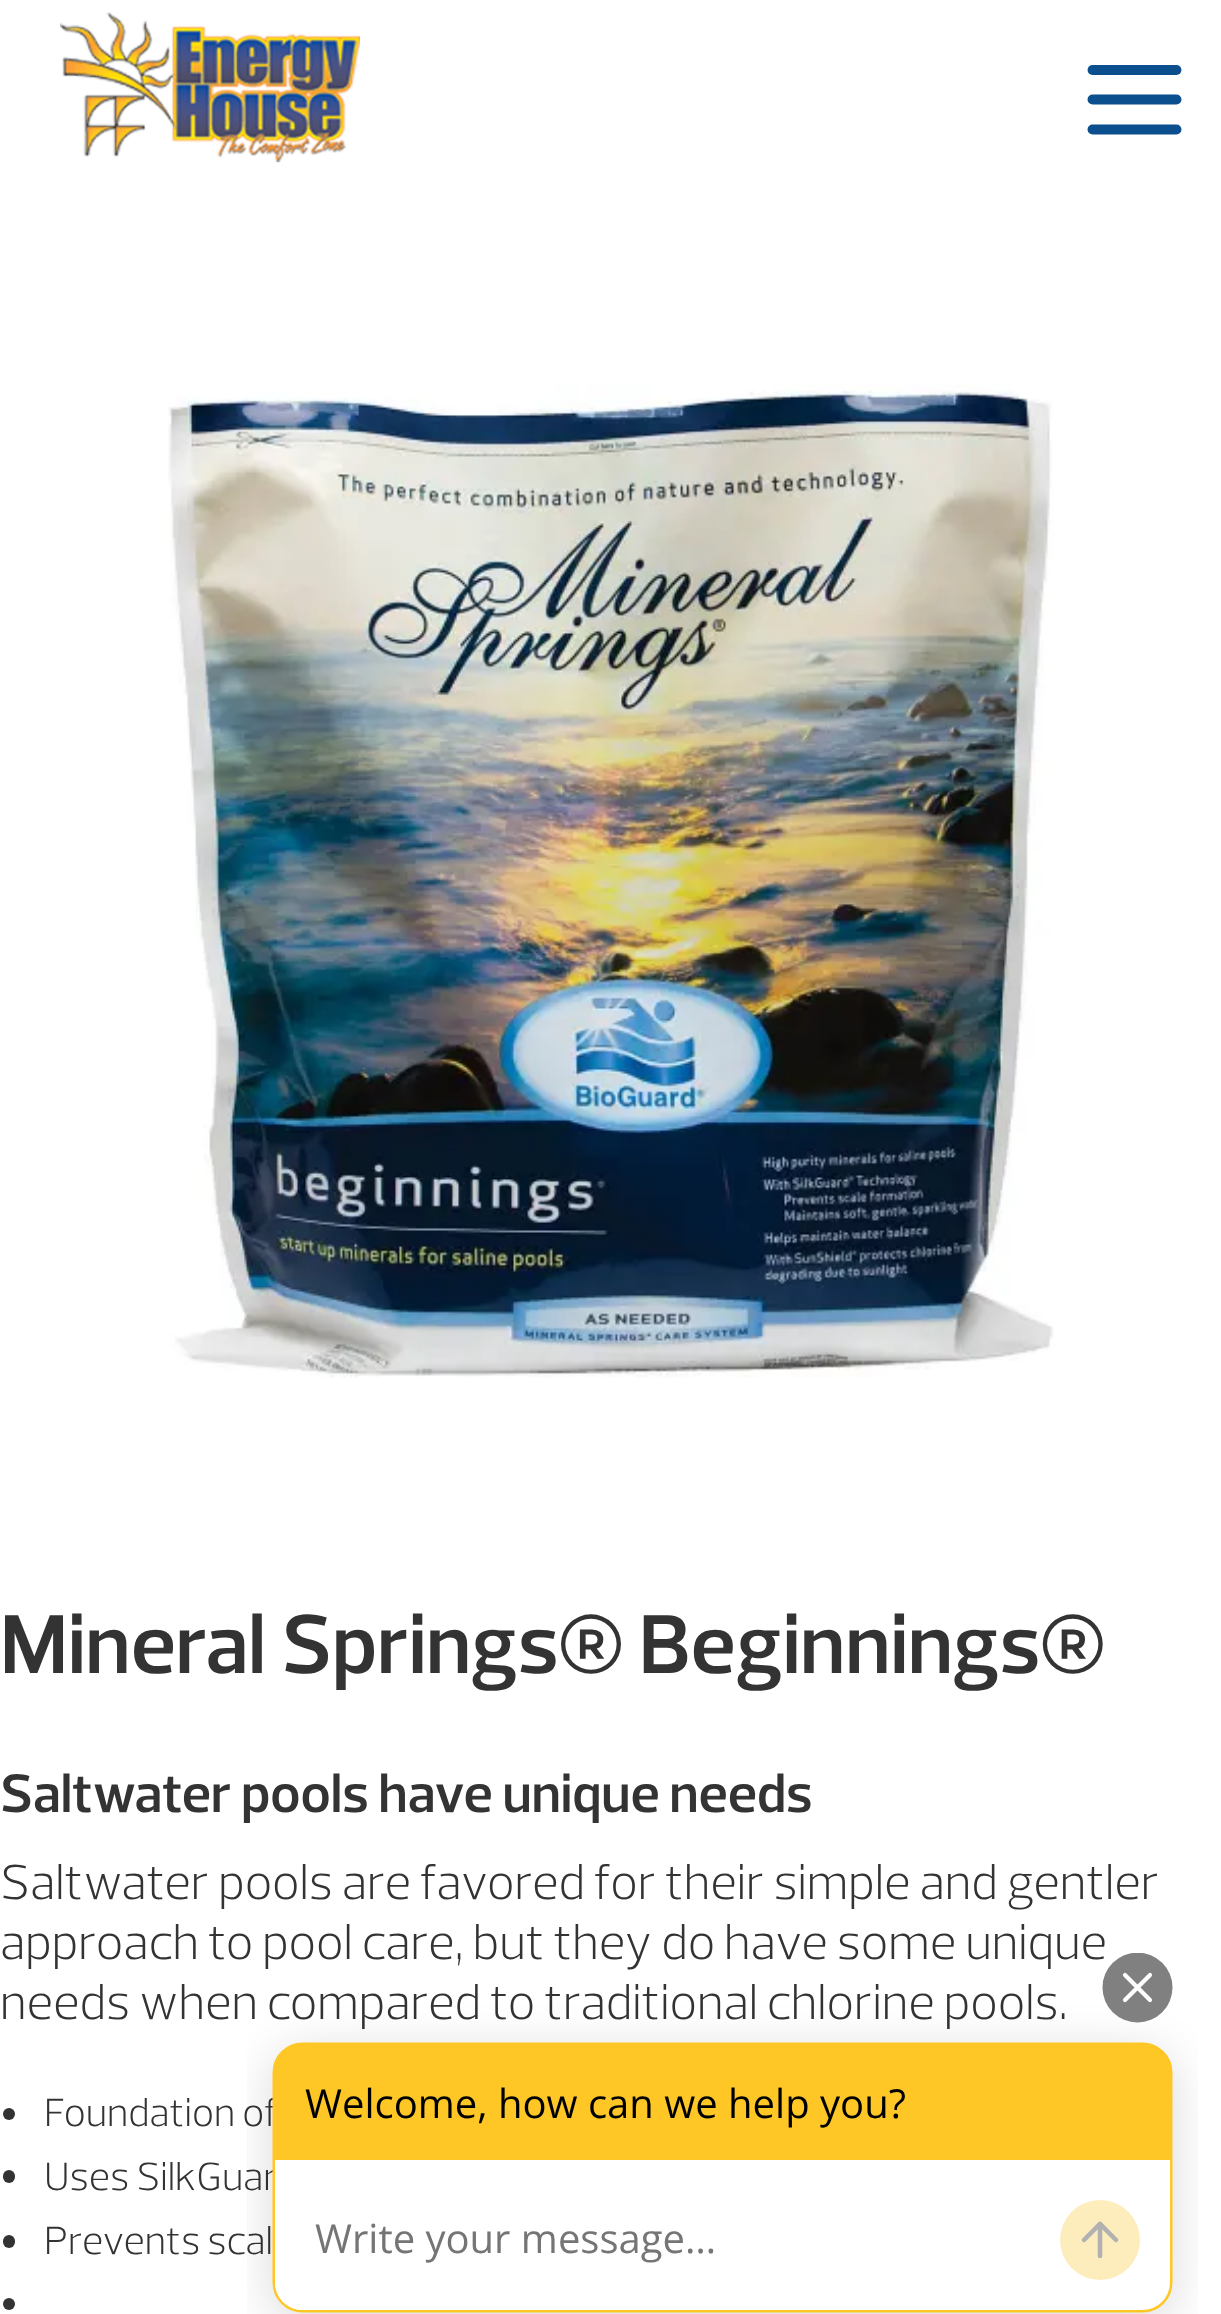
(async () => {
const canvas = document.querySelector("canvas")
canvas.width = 1221
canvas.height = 2314
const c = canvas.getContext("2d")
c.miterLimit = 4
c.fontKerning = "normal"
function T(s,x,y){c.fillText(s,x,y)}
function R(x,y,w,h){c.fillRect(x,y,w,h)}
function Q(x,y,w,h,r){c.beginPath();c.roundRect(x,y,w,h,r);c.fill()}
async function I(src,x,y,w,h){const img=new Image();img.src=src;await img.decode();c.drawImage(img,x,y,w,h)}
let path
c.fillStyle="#fff"
R(0,0,1221,2314)
await I("1.png",60,12,300,151)
path = new Path2D("M1176.5 70h-84")
c.strokeStyle="#0b4f8e"
c.lineWidth=9.9
c.lineCap="round"
c.lineJoin="round"
c.stroke(path)
path = new Path2D("M1176.5 99.5h-84")
c.stroke(path)
path = new Path2D("M1176.5 129.5h-84")
c.stroke(path)
await I("2.png",168,383,886,995)
c.font="600 85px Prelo"
c.fillStyle="#333"
T("Mineral Springs® Beginnings®",0,1673)
c.font="600 55px Prelo"
T("Saltwater pools have unique needs",0,1812)
c.font="300 50px Prelo"
T("Saltwater pools are favored for their simple and gentler",0,1899)
T("approach to pool care, but they do have some unique",0,1959)
T("needs when compared to traditional chlorine pools.",0,2019)
c.beginPath()
c.arc(9,2114,6,0,7)
c.fill()
c.font="300 40px Prelo"
T("Foundation of",44,2126)
Q(3,2170,12,13,6)
T("Uses SilkGuar",44,2190)
Q(3,2235,12,13,6)
T("Prevents scal",44,2254)
c.beginPath()
c.arc(9,2304,6,0,7)
c.fill()
await I("3.png",247,1953,951,361)
})()
